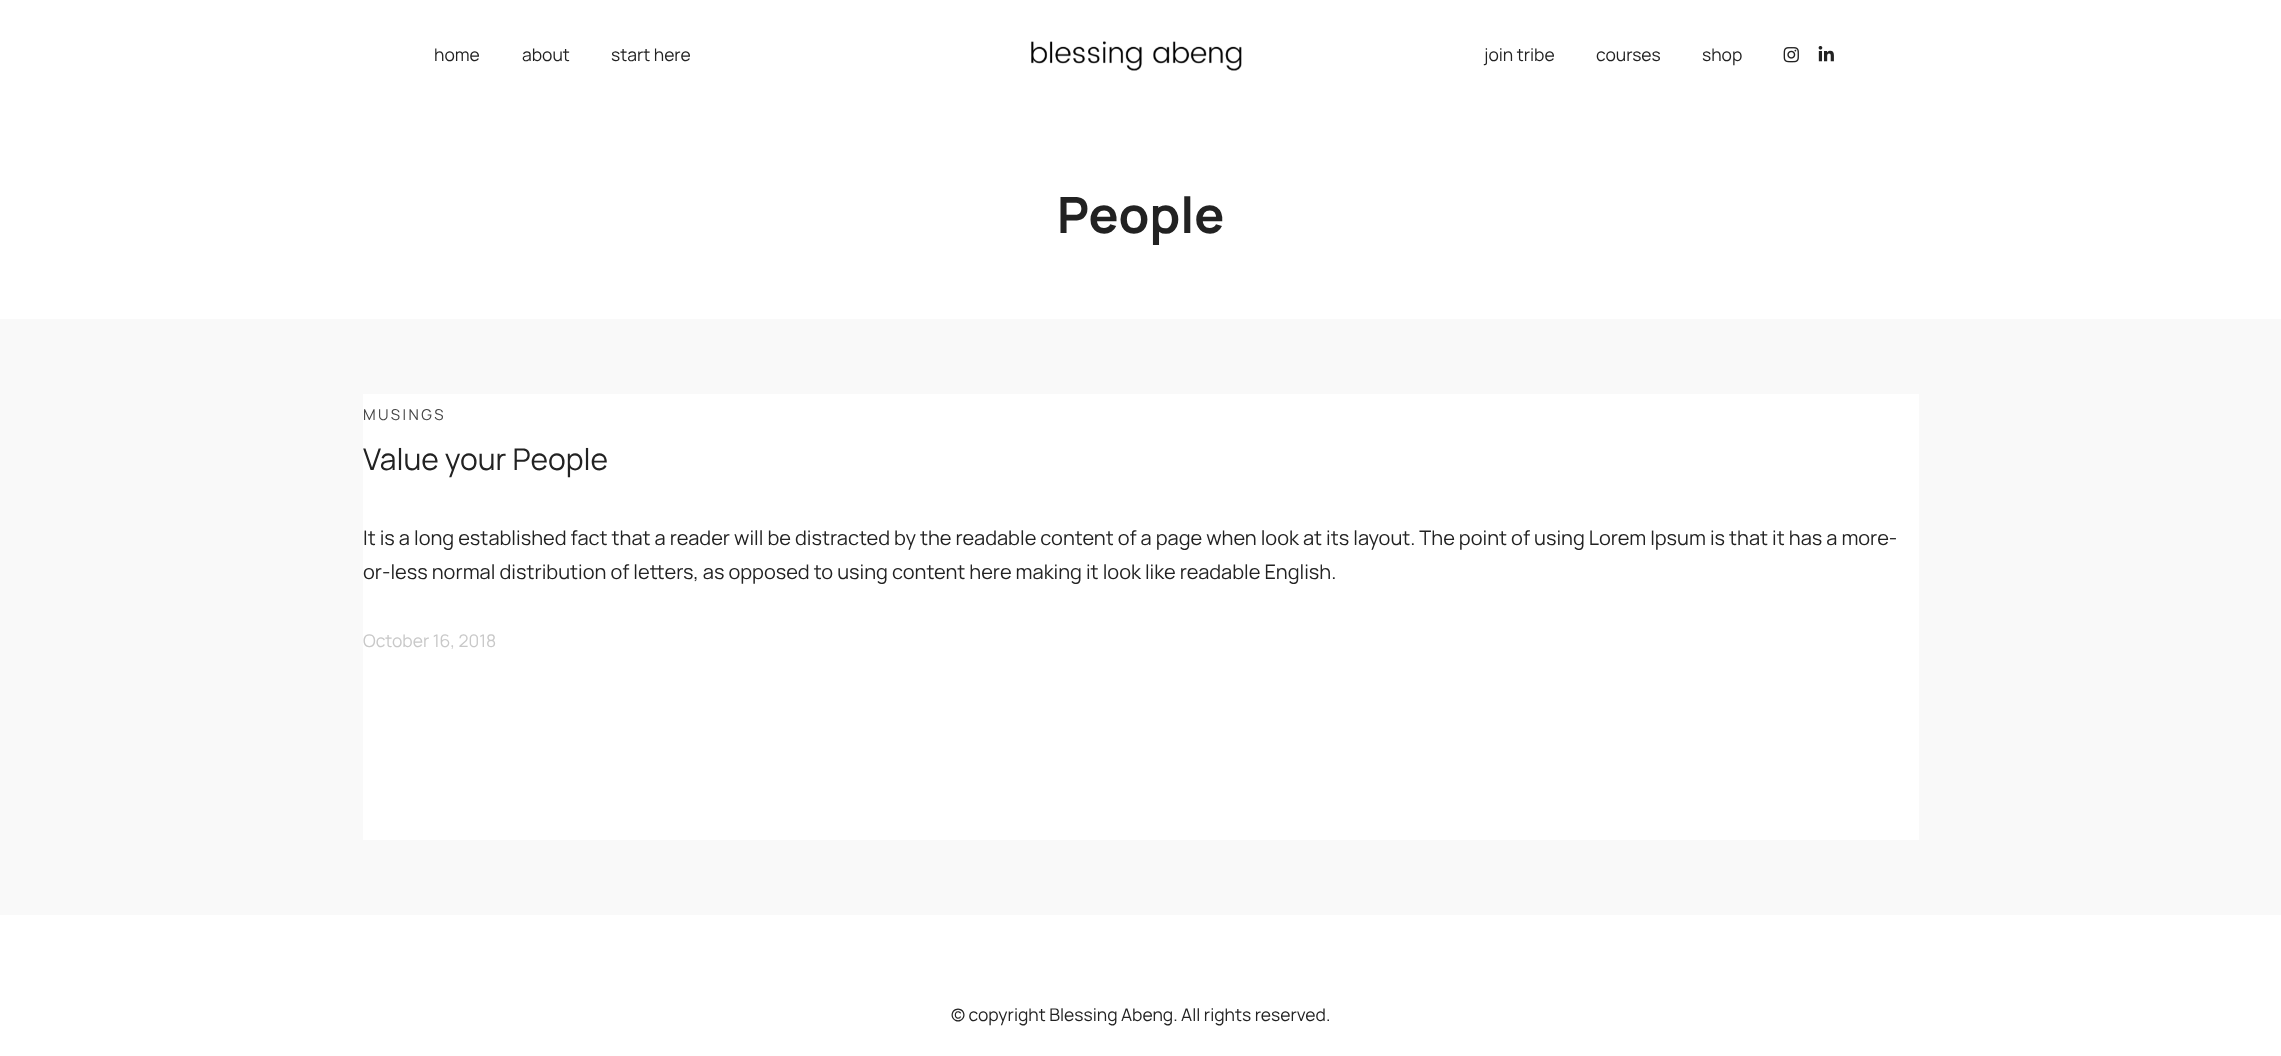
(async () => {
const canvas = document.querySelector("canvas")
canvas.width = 2281
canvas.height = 1056
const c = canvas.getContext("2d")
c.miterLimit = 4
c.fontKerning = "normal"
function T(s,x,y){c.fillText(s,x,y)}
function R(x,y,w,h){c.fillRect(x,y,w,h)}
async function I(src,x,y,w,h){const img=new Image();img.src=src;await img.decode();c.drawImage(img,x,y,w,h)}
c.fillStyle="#fff"
R(0,0,2281,1056)
c.fillStyle="#f9f9f9"
R(0,319,2281,596)
c.font="17.5px Manrope"
c.fillStyle="#222"
T("home",434,61)
T("about",522,61)
T("start here",611,61)
await I("1.png",1031,41,211,30)
T("join tribe",1484,61)
T("courses",1596,61)
T("shop",1702,61)
await I("2.png",1783,47,16,16)
await I("3.png",1818,46,16,16)
c.font="bold 50px Manrope"
T("People",1057,233)
c.fillStyle="#fff"
R(363,394,1556,446)
c.letterSpacing="2.5px"
c.font="15px Manrope"
c.fillStyle="#444"
T("MUSINGS",363,420)
c.letterSpacing="0px"
c.font="30px Manrope"
c.fillStyle="#222"
T("Value your People",363,470)
c.font="20px Manrope"
T("It is a long established fact that a reader will be distracted by the readable content of a page when look at its layout. The point of using Lorem Ipsum is that it has a more-",363,545)
T("or-less normal distribution of letters, as opposed to using content here making it look like readable English.",363,579)
c.font="17.5px Manrope"
c.fillStyle="#c8c8c8"
T("October 16, 2018",363,647)
c.fillStyle="#222"
T("© copyright Blessing Abeng. All rights reserved.",951,1021)
})()
